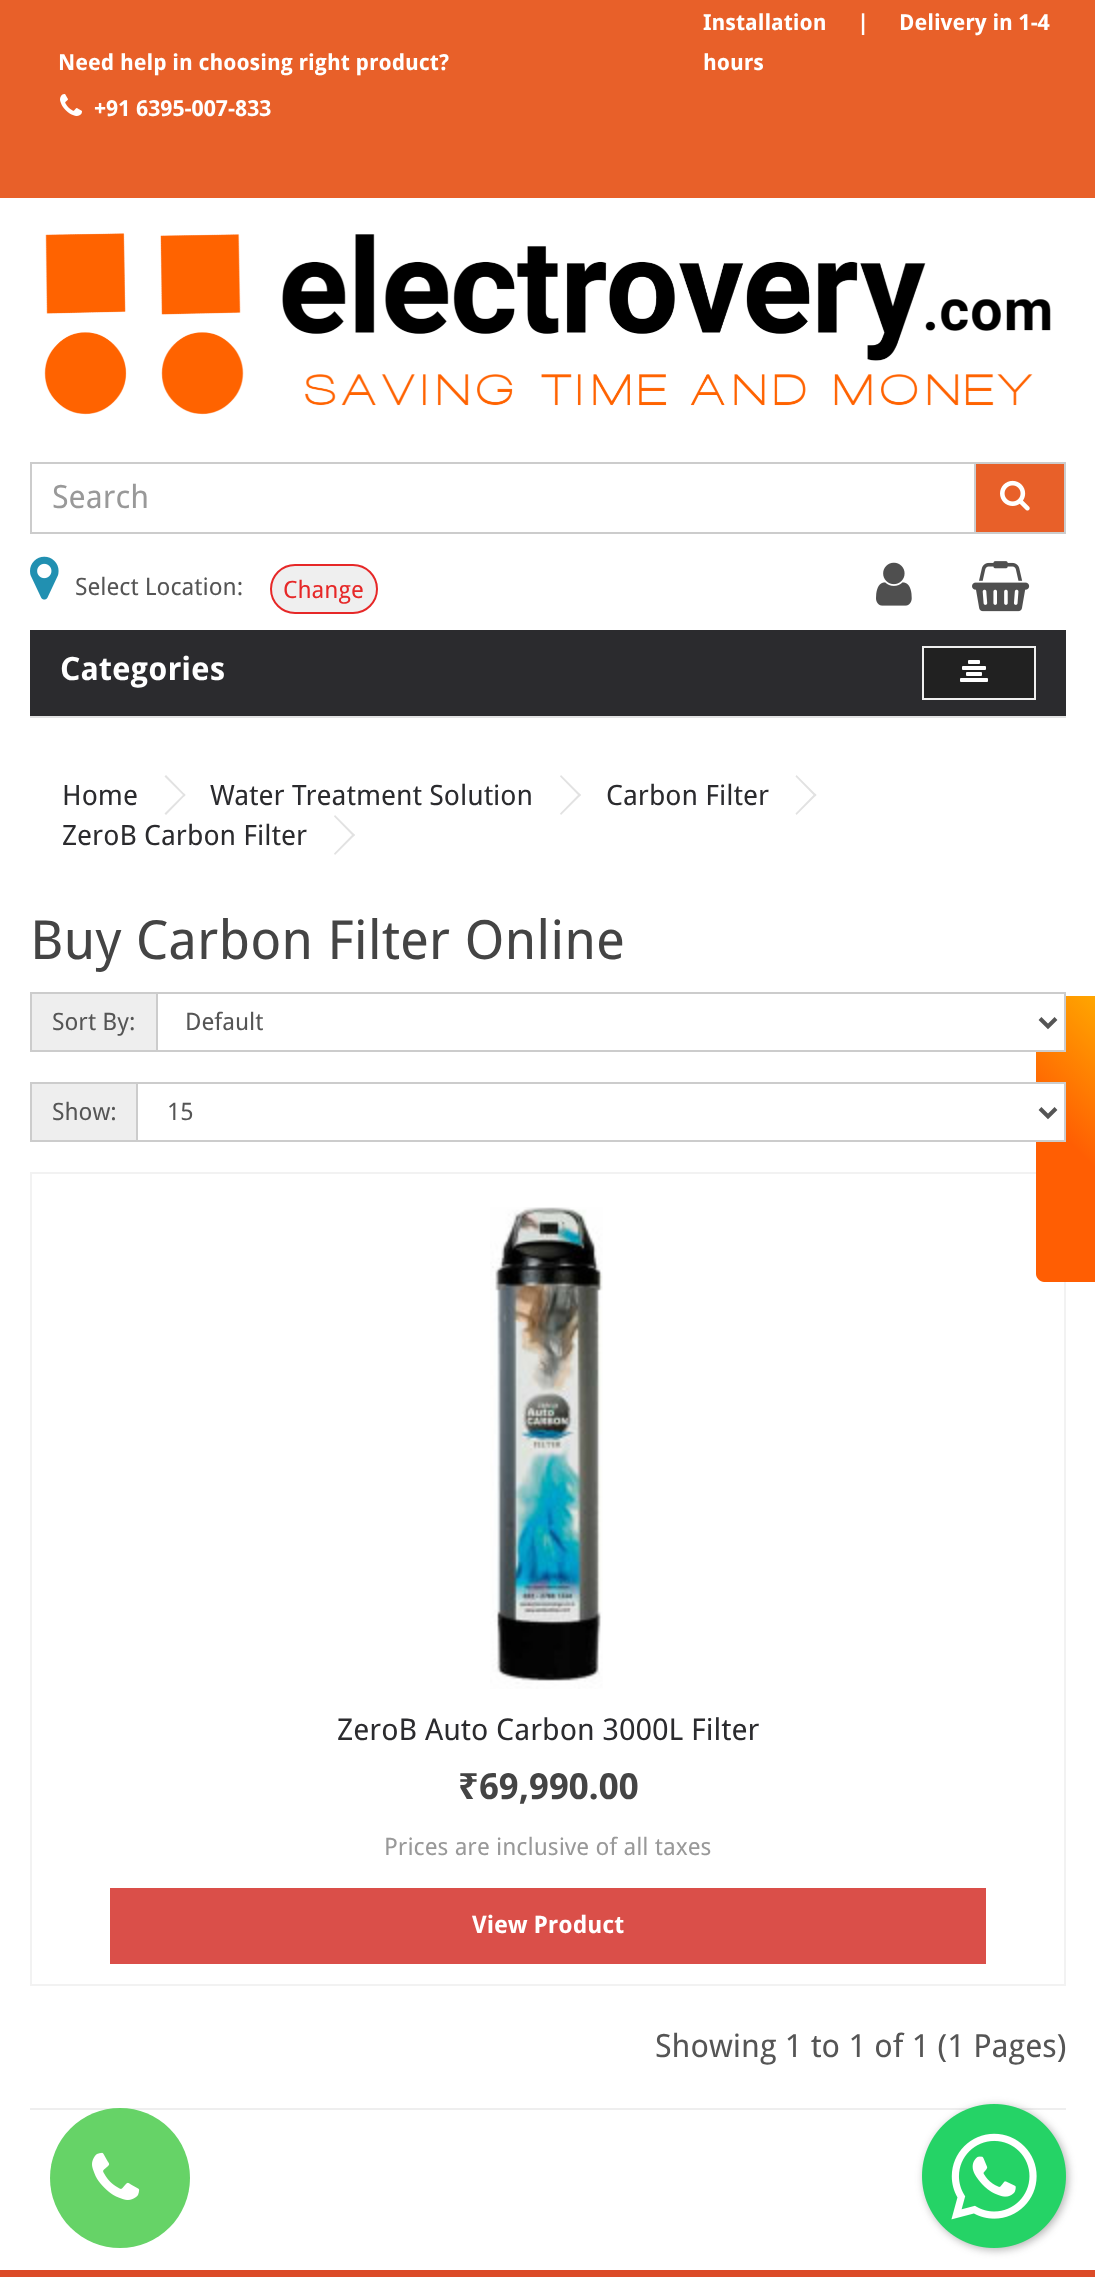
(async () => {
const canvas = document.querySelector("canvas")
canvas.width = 1095
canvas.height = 2277
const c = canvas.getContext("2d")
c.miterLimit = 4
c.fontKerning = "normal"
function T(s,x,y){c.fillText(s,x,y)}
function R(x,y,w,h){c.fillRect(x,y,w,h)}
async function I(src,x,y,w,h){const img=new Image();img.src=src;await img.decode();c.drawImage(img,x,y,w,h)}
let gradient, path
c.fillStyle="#fff"
R(0,0,1095,2277)
c.fillStyle="#e86029"
R(0,0,1095,198)
c.font="bold 22px Droid Sans"
c.fillStyle="#fff"
T("Installation",703,30)
T("|",857,30)
T("Delivery in 1-4",899,30)
T("hours",703,70)
T("Need help in choosing right product?",58,70)
await I("1.png",60,94,22,22)
T("+91 6395-007-833",94,116)
await I("2.png",44,233,1007,182)
c.strokeStyle="#ccc"
c.lineWidth=2
c.strokeRect(31,463,944,70)
c.font="32px Droid Sans"
c.fillStyle="#999"
T("Search",52,508)
c.fillStyle="#e86029"
c.beginPath()
c.rect(975,463,90,70)
c.fill()
c.stroke()
await I("3.png",1000,480,30,31)
await I("4.png",30,556,29,44)
c.font="24px Droid Sans"
c.fillStyle="#555"
T("Select Location:",75,595)
c.fillStyle="#efefef"
c.beginPath()
c.roundRect(271,565,106,48,24)
c.fill()
c.strokeStyle="#e62828"
c.stroke()
c.fillStyle="#e62828"
T("Change",283,598)
await I("5.png",876,562,36,44)
await I("6.png",972,561,58,51)
c.fillStyle="#2b2b2e"
R(30,630,1036,86)
c.fillStyle="#e2e2e2"
R(30,716,1036,2)
c.font="bold 32px Droid Sans"
c.fillStyle="#fff"
T("Categories",60,680)
c.fillStyle="#212121"
c.beginPath()
c.rect(923,647,112,52)
c.fill()
c.strokeStyle="#efefef"
c.stroke()
await I("7.png",960,660,28,22)
c.font="28px Droid Sans"
c.fillStyle="#2b2b2e"
T("Home",62,805)
c.fillStyle="#e2e2e2"
path = new Path2D("M164.5 776.5l1.5-1.5l19.5 20l-1 1.5z")
c.fill(path)
path = new Path2D("M164.5 813.5l20-20l1 1.5l-19.5 20z")
c.fill(path)
c.fillStyle="#2b2b2e"
T("Water Treatment Solution",210,805)
c.fillStyle="#e2e2e2"
path = new Path2D("M560 776.5l1-1.5l20 20l-1.5 1.5z")
c.fill(path)
path = new Path2D("M560 813.5l19.5-20l1.5 1.5l-20 20z")
c.fill(path)
c.fillStyle="#2b2b2e"
T("Carbon Filter",606,805)
c.fillStyle="#e2e2e2"
path = new Path2D("M795.5 776.5l1-1.5l20 20l-1.5 1.5z")
c.fill(path)
path = new Path2D("M795.5 813.5l19.5-20l1.5 1.5l-20 20z")
c.fill(path)
c.fillStyle="#2b2b2e"
T("ZeroB Carbon Filter",62,845)
c.fillStyle="#e2e2e2"
path = new Path2D("M334 816.5l1-1.5l20 20l-1.5 1.5z")
c.fill(path)
path = new Path2D("M334 853.5l19.5-20l1.5 1.5l-20 20z")
c.fill(path)
c.font="54px Droid Sans"
c.fillStyle="#444"
T("Buy Carbon Filter Online",30,959)
c.fillStyle="#eee"
R(32,994,124,56)
c.fillStyle="#ccc"
R(30,992,126,2)
R(30,1050,126,2)
R(30,992,2,60)
c.font="24px Droid Sans"
c.fillStyle="#555"
T("Sort By:",52,1030)
c.strokeStyle="#f2f2f2"
c.strokeRect(31,1173,1034,812)
gradient = c.createLinearGradient(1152,1053,980,1225)
gradient.addColorStop(0,"#ffa600")
gradient.addColorStop(.5,"#ff5e03")
c.fillStyle = gradient
path = new Path2D("M1036 1274v-270c0-4 4-8 8-8h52v286h-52c-4 0-8-4-8-8z")
c.fill(path)
c.fillStyle="#fff"
R(1036,996,28,54)
c.strokeStyle="#ccc"
c.strokeRect(157,993,908,58)
path = new Path2D("M1040 1018.5l8 8l8-8")
c.strokeStyle="#555"
c.lineWidth=4
c.stroke(path)
c.fillStyle="#555"
T("Default",185,1030)
c.fillStyle="#eee"
R(32,1084,104,56)
c.fillStyle="#ccc"
R(30,1082,106,2)
R(30,1140,106,2)
R(30,1082,2,60)
c.fillStyle="#555"
T("Show:",52,1120)
c.fillStyle="#fff"
R(1036,1084,28,56)
c.strokeStyle="#ccc"
c.lineWidth=2
c.strokeRect(137,1083,928,58)
path = new Path2D("M1040 1108.5l8 8l8-8")
c.strokeStyle="#555"
c.lineWidth=4
c.stroke(path)
c.fillStyle="#555"
T("15",167,1120)
await I("8.png",490,1207,113,482)
c.font="30px Droid Sans"
c.fillStyle="#2b2b2e"
T("ZeroB Auto Carbon 3000L Filter",337,1740)
c.font="bold 36px Noto Sans"
c.fillStyle="#444"
T("₹",458,1799)
c.font="bold 36px Droid Sans"
T("69,990.00",479,1799)
c.font="24px Droid Sans"
c.fillStyle="#999"
T("Prices are inclusive of all taxes",384,1855)
c.fillStyle="#da4f49"
R(110,1888,876,76)
c.font="bold 24px Droid Sans"
c.fillStyle="#fff"
T("View Product",472,1933)
c.font="32px Droid Sans"
c.fillStyle="#555"
T("Showing 1 to 1 of 1 (1 Pages)",655,2057)
c.fillStyle="#eee"
R(30,2108,1036,2)
c.fillStyle="#66d367"
c.beginPath()
c.arc(120,2178,70,0,7)
c.fill()
await I("9.png",92,2152,48,48)
c.fillStyle="#3c3c3c66"
c.filter="blur(4px)"
c.beginPath()
c.roundRect(924,2106,144,144,72)
c.fill()
c.filter="none"
await I("10.png",922,2104,144,144)
c.fillStyle="#dc4b28"
R(0,2270,1095,7)
})()
